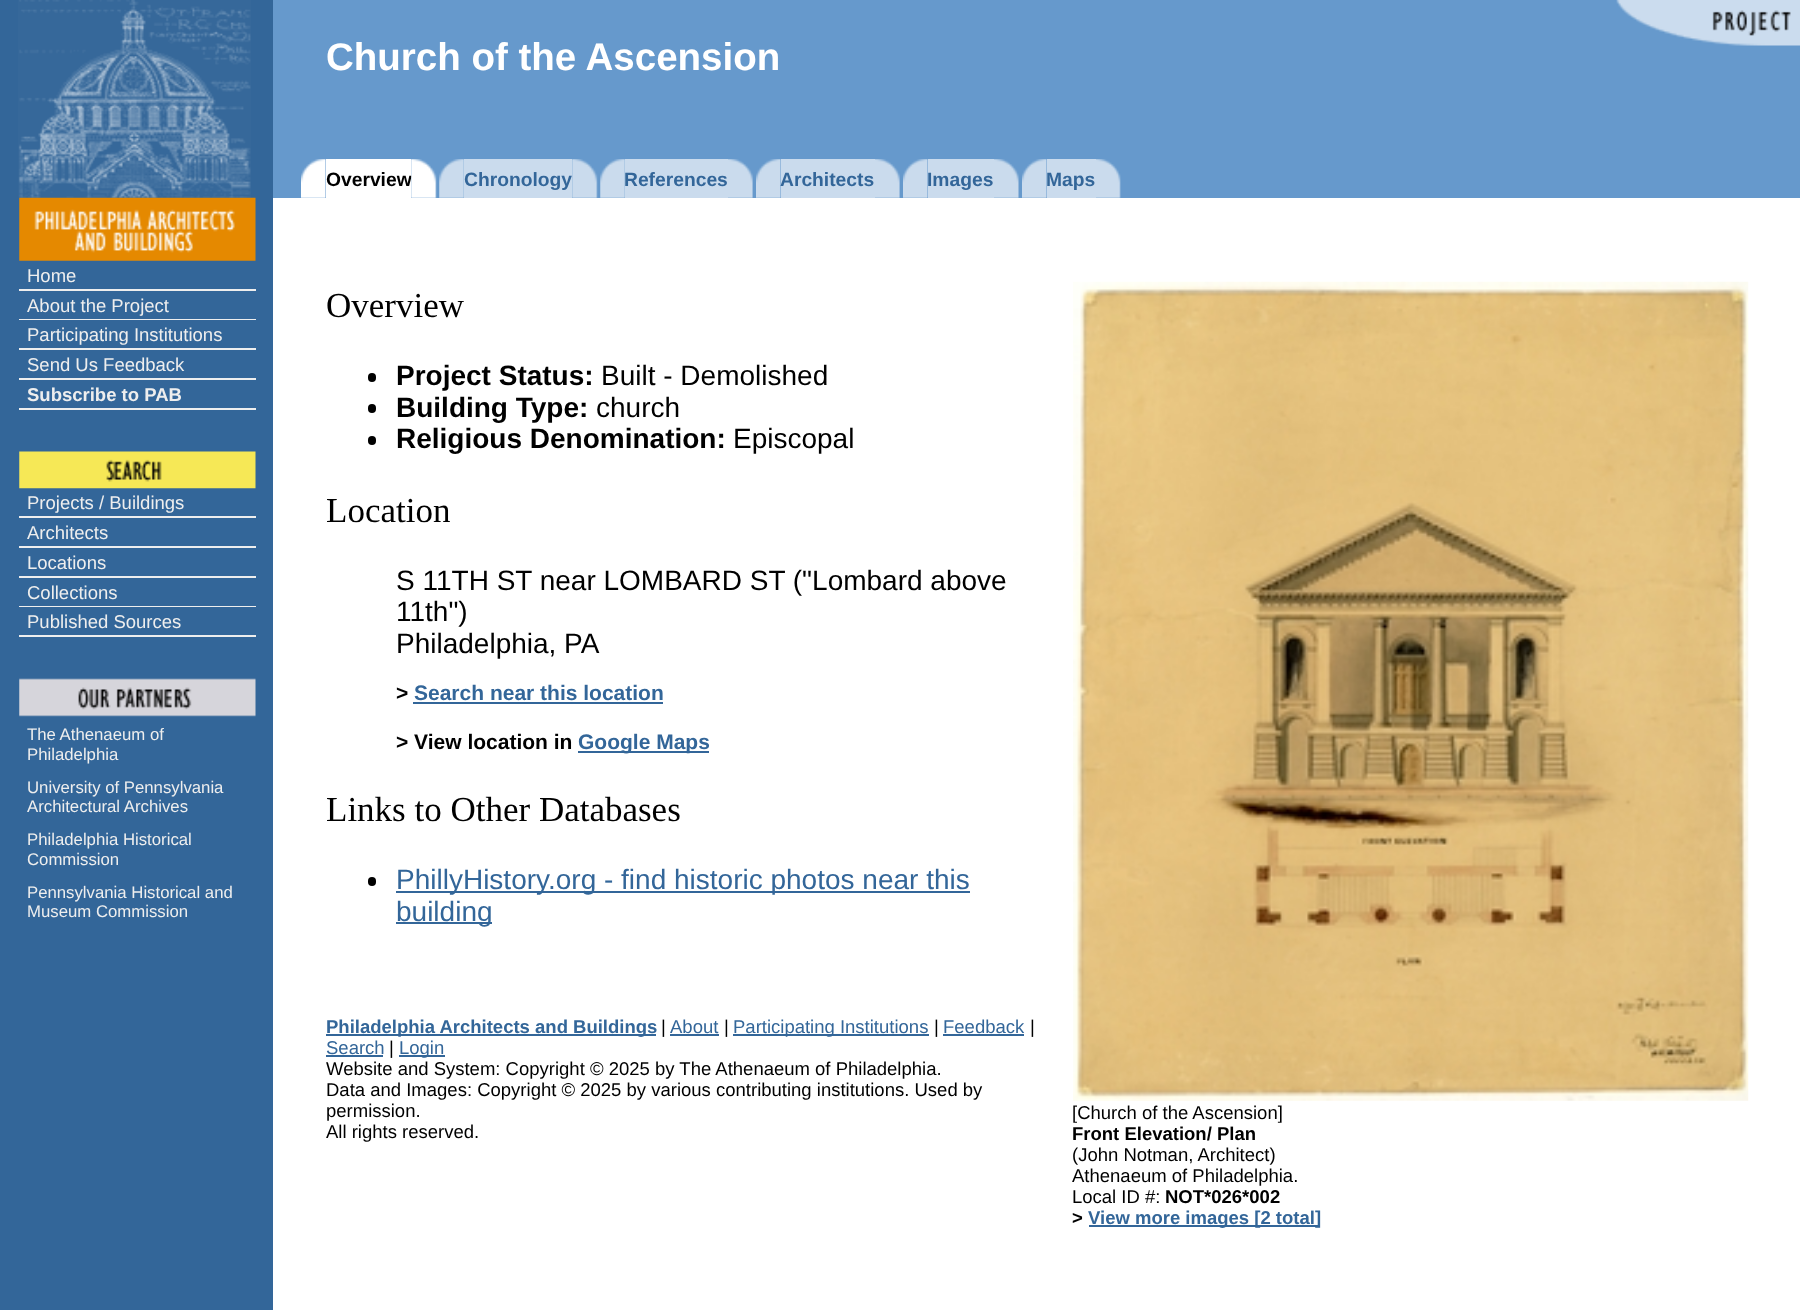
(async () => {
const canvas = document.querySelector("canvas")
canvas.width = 1800
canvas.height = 1310
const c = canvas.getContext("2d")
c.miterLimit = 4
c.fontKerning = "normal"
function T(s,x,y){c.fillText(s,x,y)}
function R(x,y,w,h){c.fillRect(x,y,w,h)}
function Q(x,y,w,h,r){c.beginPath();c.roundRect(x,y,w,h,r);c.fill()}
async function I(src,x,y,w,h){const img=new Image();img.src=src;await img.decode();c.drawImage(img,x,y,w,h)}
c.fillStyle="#69c"
R(0,0,1800,1310)
c.fillStyle="#369"
R(0,0,273,1310)
await I("1.png",18,0,233,198)
await I("2.png",1616,0,184,46)
c.font="bold 38.5px Liberation Sans"
c.fillStyle="#fff"
T("Church of the Ascension",326,70)
await I("3.png",301,159,25,39)
R(326,159,85,39)
c.font="bold 19.25px Liberation Sans"
c.fillStyle="#000"
T("Overview",326,186)
await I("4.png",411,159,26,39)
await I("5.png",439,159,25,39)
c.fillStyle="#cadbed"
R(464,159,108,39)
c.fillStyle="#369"
T("Chronology",464,186)
await I("6.png",572,159,26,39)
await I("5.png",600,159,25,39)
c.fillStyle="#cadbed"
R(625,159,103,39)
c.fillStyle="#369"
T("References",624,186)
await I("7.png",728,159,25,39)
await I("8.png",756,159,25,39)
c.fillStyle="#cadbed"
R(781,159,94,39)
c.fillStyle="#369"
T("Architects",780,186)
await I("7.png",875,159,25,39)
await I("9.png",903,159,25,39)
c.fillStyle="#cadbed"
R(928,159,66,39)
c.fillStyle="#369"
T("Images",927,186)
await I("10.png",994,159,25,39)
await I("8.png",1022,159,25,39)
c.fillStyle="#cadbed"
R(1047,159,49,39)
c.fillStyle="#369"
T("Maps",1046,186)
await I("11.png",1096,159,25,39)
await I("12.png",19,197,237,64)
c.fillStyle="#eee"
R(19,289,237,2)
c.font="18.5px Liberation Sans"
T("Home",27,282)
R(19,319,237,1)
T("About the Project",27,312)
R(19,348,237,2)
T("Participating Institutions",27,341)
R(19,378,237,2)
T("Send Us Feedback",27,371)
R(19,408,237,2)
c.font="bold 18.5px Liberation Sans"
T("Subscribe to PAB",27,401)
await I("13.png",19,451,237,38)
R(19,516,237,2)
c.font="18.5px Liberation Sans"
T("Projects / Buildings",27,509)
R(19,546,237,2)
T("Architects",27,539)
R(19,576,237,2)
T("Locations",27,569)
R(19,606,237,1)
T("Collections",27,599)
R(19,635,237,2)
T("Published Sources",27,628)
await I("14.png",19,678,237,39)
c.font="16.75px Liberation Sans"
T("The Athenaeum of",27,740)
T("Philadelphia",27,760)
T("University of Pennsylvania",27,793)
T("Architectural Archives",27,812)
T("Philadelphia Historical",27,845)
T("Commission",27,865)
T("Pennsylvania Historical and",27,898)
T("Museum Commission",27,917)
c.fillStyle="#fff"
R(273,198,1527,1112)
c.font="35px Liberation Serif"
c.fillStyle="#000"
T("Overview",326,317)
Q(368,373,8,9,4)
c.font="bold 28px Liberation Sans"
T("Project Status:",396,385)
c.font="28px Liberation Sans"
T("Built - Demolished",601,385)
Q(368,404,8,9,4)
c.font="bold 28px Liberation Sans"
T("Building Type:",396,417)
c.font="28px Liberation Sans"
T("church",596,417)
Q(368,436,8,9,4)
c.font="bold 28px Liberation Sans"
T("Religious Denomination:",396,448)
c.font="28px Liberation Sans"
T("Episcopal",733,448)
c.font="35px Liberation Serif"
T("Location",326,522)
c.font="28px Liberation Sans"
T("S 11TH ST near LOMBARD ST (\"Lombard above",396,590)
T("11th\")",396,621)
T("Philadelphia, PA",396,653)
c.font="bold 21px Liberation Sans"
T(">",396,700)
c.fillStyle="#369"
T("Search near this location",414,700)
R(413,702,250,2)
c.fillStyle="#000"
T("> View location in",396,749)
c.fillStyle="#369"
R(578,751,131,2)
T("Google Maps",578,749)
c.font="35px Liberation Serif"
c.fillStyle="#000"
T("Links to Other Databases",326,821)
Q(368,877,8,9,4)
c.fillStyle="#369"
R(396,891,574,2)
c.font="28px Liberation Sans"
T("PhillyHistory.org - find historic photos near this",396,889)
R(396,922,96,2)
T("building",396,921)
R(326,1034,330,2)
c.font="bold 18.5px Liberation Sans"
T("Philadelphia Architects and Buildings",326,1033)
c.font="18.5px Liberation Sans"
c.fillStyle="#000"
T("|",661,1033)
c.fillStyle="#369"
T("About",670,1033)
R(670,1034,49,2)
c.fillStyle="#000"
T("|",724,1033)
c.fillStyle="#369"
R(733,1034,196,2)
T("Participating Institutions",733,1033)
c.fillStyle="#000"
T("|",934,1033)
c.fillStyle="#369"
T("Feedback",943,1033)
R(943,1034,81,2)
c.fillStyle="#000"
T("|",1030,1033)
c.fillStyle="#369"
T("Search",326,1054)
R(326,1055,57,2)
c.fillStyle="#000"
T("|",389,1054)
c.fillStyle="#369"
R(399,1055,46,2)
T("Login",399,1054)
c.fillStyle="#000"
T("Website and System: Copyright © 2025 by The Athenaeum of Philadelphia.",326,1075)
T("Data and Images: Copyright © 2025 by various contributing institutions. Used by",326,1096)
T("permission.",326,1117)
T("All rights reserved.",326,1138)
await I("15.png",1073,281,676,820)
T("[Church of the Ascension]",1072,1119)
c.font="bold 18.5px Liberation Sans"
T("Front Elevation/ Plan",1072,1140)
c.font="18.5px Liberation Sans"
T("(John Notman, Architect)",1072,1161)
T("Athenaeum of Philadelphia.",1072,1182)
T("Local ID #:",1072,1203)
c.font="bold 18.5px Liberation Sans"
T("NOT*026*002",1165,1203)
T(">",1072,1224)
c.fillStyle="#369"
R(1089,1225,231,2)
T("View more images [2 total]",1088,1224)
})()
